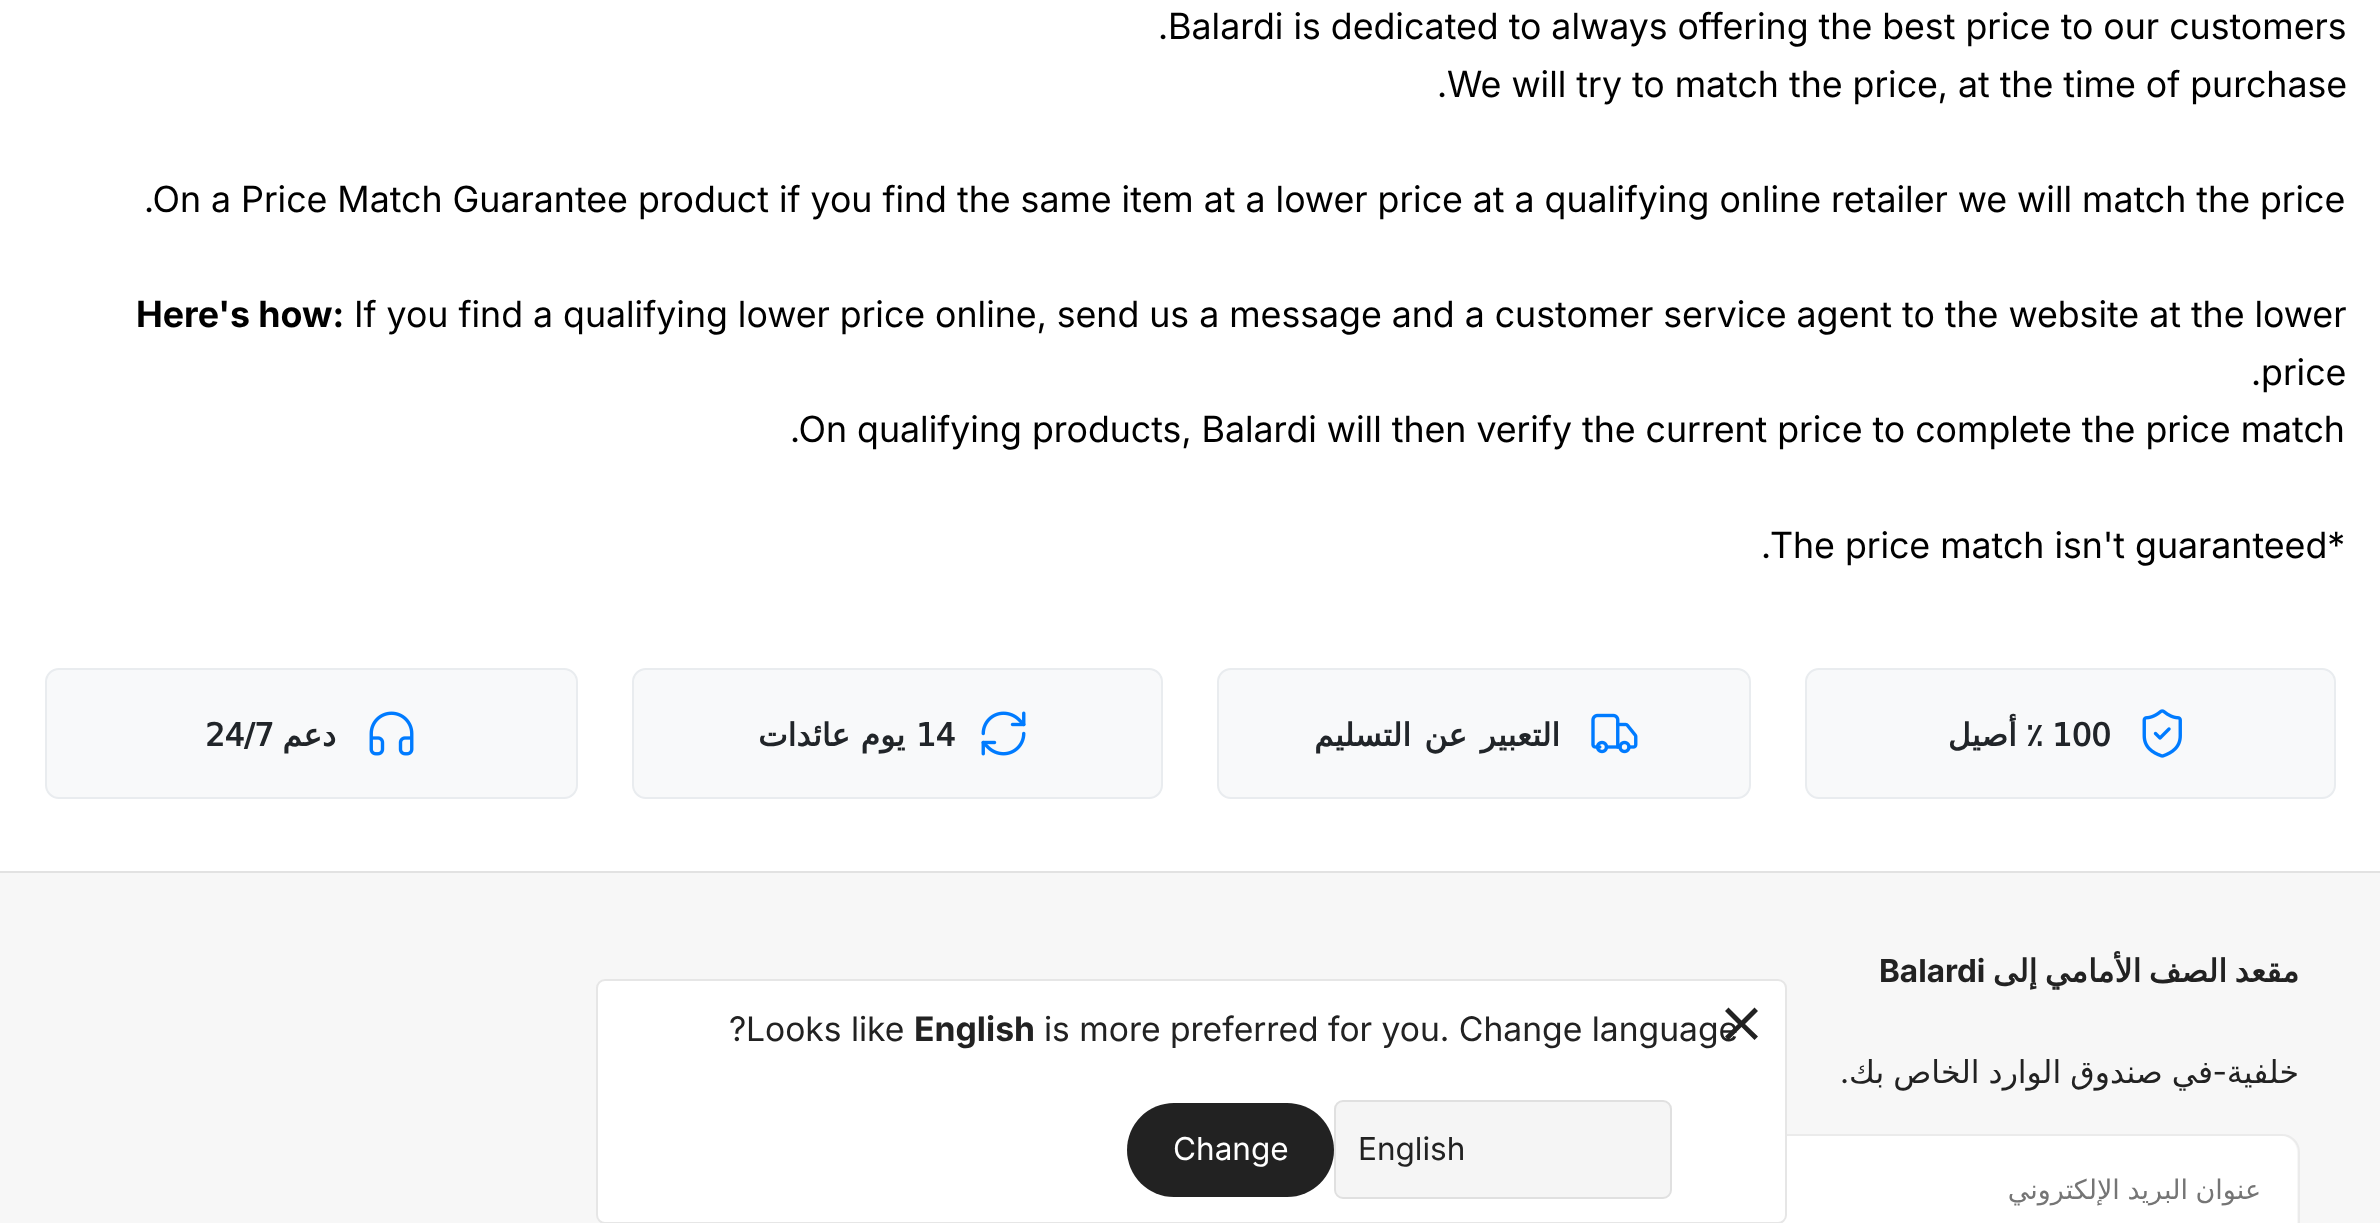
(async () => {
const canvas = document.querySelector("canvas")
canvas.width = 2380
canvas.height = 1223
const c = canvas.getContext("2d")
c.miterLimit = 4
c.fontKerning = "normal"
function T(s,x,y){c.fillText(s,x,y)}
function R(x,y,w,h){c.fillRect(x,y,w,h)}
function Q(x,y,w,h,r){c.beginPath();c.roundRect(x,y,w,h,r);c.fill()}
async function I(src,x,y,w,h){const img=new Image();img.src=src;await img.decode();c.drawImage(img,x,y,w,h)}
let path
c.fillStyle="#fff"
R(0,0,2380,1223)
c.font="36px Inter"
c.fillStyle="#000"
T(".Balardi is dedicated to always offering the best price to our customers",1158,39)
T(".We will try to match the price, at the time of purchase",1437,97)
T(".On a Price Match Guarantee product if you find the same item at a lower price at a qualifying online retailer we will match the price",144,212)
c.font="bold 36px Inter"
T("Here's how:",136,327)
c.font="36px Inter"
T("If you find a qualifying lower price online, send us a message and a customer service agent to the website at the lower",354,327)
T(".price",2251,385)
T(".On qualifying products, Balardi will then verify the current price to complete the price match",790,442)
T(".The price match isn't guaranteed*",1761,558)
c.fillStyle="#f8f9fa"
c.beginPath()
c.roundRect(46,669,531,129,13)
c.fill()
c.strokeStyle="#e9ecef"
c.lineWidth=2
c.stroke()
c.letterSpacing="-0.6px"
c.font="bold 31.5px DejaVu Sans"
c.fillStyle="#212529"
T("24/7",205,746)
c.direction="rtl"
T("دعم",336,746)
await I("1.png",369,711,45,45)
c.fillStyle="#f8f9fa"
c.beginPath()
c.roundRect(633,669,529,129,13)
c.fill()
c.stroke()
c.wordSpacing="1px"
c.fillStyle="#212529"
T("يوم عائدات",905,746)
c.wordSpacing="0px"
c.direction="ltr"
T("14",916,746)
await I("2.png",981,711,45,45)
c.fillStyle="#f8f9fa"
c.beginPath()
c.roundRect(1218,669,532,129,13)
c.fill()
c.stroke()
c.wordSpacing="4px"
c.direction="rtl"
c.fillStyle="#212529"
T("التعبير عن التسليم",1560,746)
await I("3.png",1591,713,47,41)
c.fillStyle="#f8f9fa"
c.beginPath()
c.roundRect(1806,669,529,129,13)
c.fill()
c.stroke()
c.wordSpacing="0px"
c.fillStyle="#212529"
T("٪ أصيل",2043,746)
c.direction="ltr"
T("100",2052,746)
await I("4.png",2142,709,40,49)
c.fillStyle="#f7f7f7"
R(0,873,2380,350)
c.fillStyle="#e2e2e2"
R(0,871,2380,2)
c.letterSpacing="0px"
c.font="bold 31.5px 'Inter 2'"
c.fillStyle="#222"
T("Balardi",1879,982)
c.save()
c.beginPath()
c.rect(1226,945,1074,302)
c.clip()
c.wordSpacing="-2.5px"
c.direction="rtl"
c.font="bold 31.5px DejaVu Sans"
T("مقعد الصف الأمامي إلى",2299,982)
c.restore()
c.wordSpacing="-1px"
c.direction="rtl"
c.font="31.5px DejaVu Sans"
T("في صندوق الوارد الخاص بك",2213,1083)
c.wordSpacing="0px"
c.font="31.5px 'Inter 2'"
T("-",2227,1083)
c.font="31.5px DejaVu Sans"
T("خلفية",2299,1083)
c.font="31.5px 'Inter 2'"
T(".",1849,1083)
c.beginPath()
c.roundRect(1356,1135,943,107,17)
c.strokeStyle="#ebebeb"
c.stroke()
c.fillStyle="#fff"
path = new Path2D("M1505 1136h776c9 0 16 7 16 16v71c0 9-7 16-16 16h-776z")
c.fill(path)
c.wordSpacing="-1px"
c.font="27px DejaVu Sans"
c.fillStyle="#757575"
T("عنوان البريد الإلكتروني",2261,1199)
c.fillStyle="#fff"
c.beginPath()
c.roundRect(597,980,1189,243,8)
c.fill()
c.strokeStyle="#e6e6e6"
c.stroke()
c.wordSpacing="0px"
c.direction="ltr"
c.font="33.75px 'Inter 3'"
c.fillStyle="#222"
T("?",729,1041)
T("Looks like",746,1041)
c.font="bold 33.75px 'Inter 2'"
T("English",914,1041)
c.font="33.75px 'Inter 3'"
T("is more preferred for you. Change language",1044,1041)
path = new Path2D("M1758 1011l-3.5-3.5l-13 13l-13-13l-3.5 3.5l13 13l-13 12.5l3.5 3.5l13-13l13 13l3.5-3.5l-13-12.5z")
c.fill(path)
Q(1127,1103,207,94,47)
c.font="31.5px 'Inter 2'"
c.fillStyle="#fff"
T("Change",1173,1160)
c.fillStyle="#f5f5f5"
c.beginPath()
c.roundRect(1335,1101,336,97,8)
c.fill()
c.strokeStyle="#e0e0e0"
c.stroke()
c.fillStyle="#222"
T("English",1358,1160)
})()
